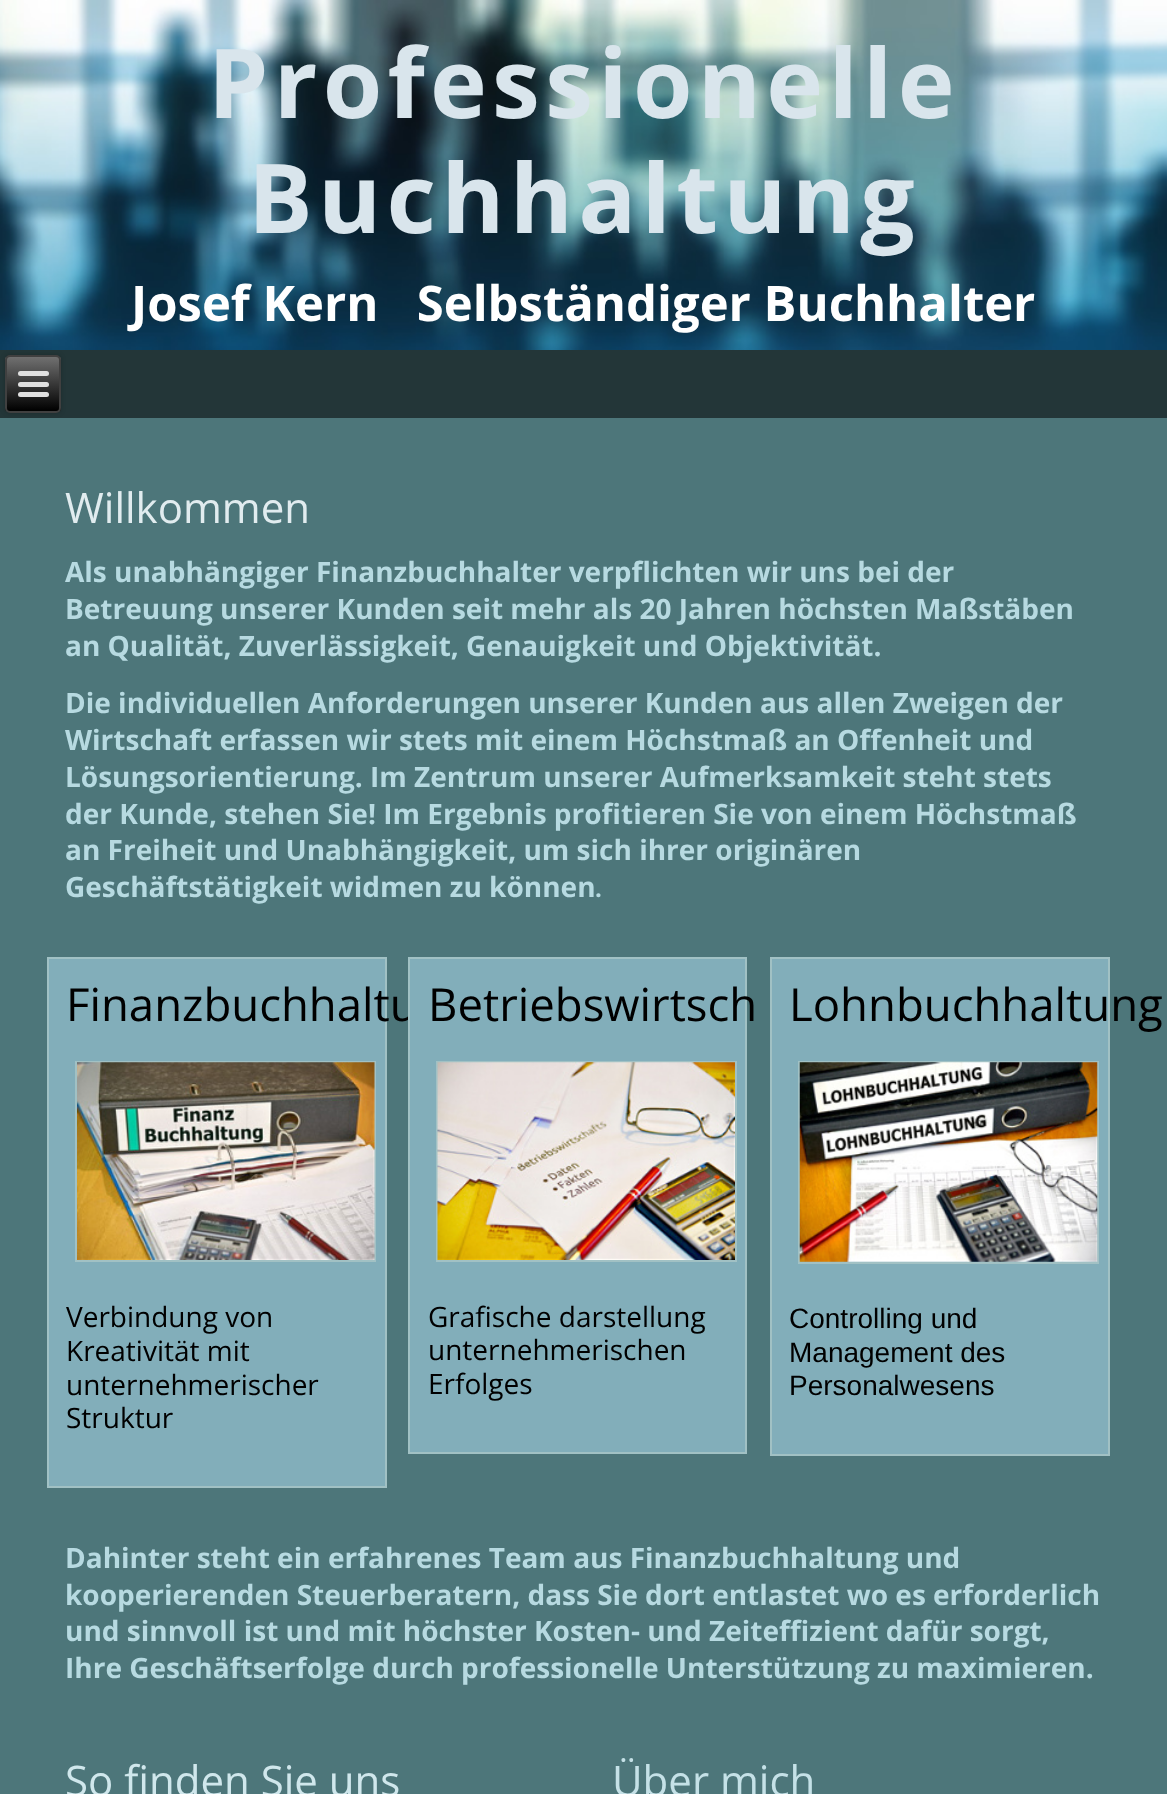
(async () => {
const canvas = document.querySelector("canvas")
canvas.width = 1167
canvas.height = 1794
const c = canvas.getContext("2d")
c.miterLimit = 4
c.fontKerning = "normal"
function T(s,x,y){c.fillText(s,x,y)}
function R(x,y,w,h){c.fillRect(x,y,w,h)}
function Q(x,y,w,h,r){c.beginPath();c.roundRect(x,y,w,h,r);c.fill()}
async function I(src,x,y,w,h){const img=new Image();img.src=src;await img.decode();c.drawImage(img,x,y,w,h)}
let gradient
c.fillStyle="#4d767a"
R(0,0,1167,1794)
await I("1.png",0,0,1167,350)
c.letterSpacing="5.25px"
c.font="bold 96.25px Open Sans"
c.fillStyle="#d9e5ec"
T("Professionelle",208,118)
T("Buchhaltung",248,233)
c.letterSpacing="0px"
c.font="bold 49px Open Sans"
c.fillStyle="#fff"
T("Josef Kern   Selbständiger Buchhalter",131,321)
c.fillStyle="#233638"
R(0,350,1167,68)
c.fillStyle="#00000033"
c.filter="blur(2.5px)"
c.beginPath()
c.roundRect(5,355,56,58,5)
c.fill()
c.filter="none"
c.save()
c.beginPath()
c.roundRect(5,355,56,58,5)
c.clip()
gradient = c.createLinearGradient(33,357,33,411)
gradient.addColorStop(0,"#707070")
gradient.addColorStop(1,"#000")
c.fillStyle = gradient
R(5,357,56,54)
c.restore()
c.beginPath()
c.roundRect(6,356,54,56,4)
c.strokeStyle="#404040"
c.lineWidth=2
c.stroke()
c.fillStyle="#e0e0e0"
Q(18,371,31,5,2.5)
Q(18,382,31,5,2.5)
Q(18,392,31,5,2.5)
c.font="42px Open Sans"
c.fillStyle="#e1ecef"
T("Willkommen",65,523)
c.font="bold 28px Open Sans"
c.fillStyle="#b7dae1"
T("Als unabhängiger Finanzbuchhalter verpflichten wir uns bei der",65,582)
T("Betreuung unserer Kunden seit mehr als 20 Jahren höchsten Maßstäben",65,619)
T("an Qualität, Zuverlässigkeit, Genauigkeit und Objektivität.",65,656)
T("Die individuellen Anforderungen unserer Kunden aus allen Zweigen der",65,713)
T("Wirtschaft erfassen wir stets mit einem Höchstmaß an Offenheit und",65,750)
T("Lösungsorientierung. Im Zentrum unserer Aufmerksamkeit steht stets",65,787)
T("der Kunde, stehen Sie! Im Ergebnis profitieren Sie von einem Höchstmaß",65,824)
T("an Freiheit und Unabhängigkeit, um sich ihrer originären",65,860)
T("Geschäftstätigkeit widmen zu können",65,897)
c.font="bold 24px Open Sans"
T(".",595,897)
c.fillStyle="#82aeba"
c.beginPath()
c.rect(48,958,338,529)
c.fill()
c.strokeStyle="#a1c1c4"
c.stroke()
c.font="45.5px Open Sans"
c.fillStyle="#000"
T("Finanzbuchhaltu",66,1021)
c.strokeRect(76,1062,299,199)
await I("2.png",77,1062,298,198)
c.font="28px Open Sans"
T("Verbindung von",66,1327)
T("Kreativität mit",66,1361)
T("unternehmerischer",66,1395)
T("Struktur",66,1428)
c.fillStyle="#82aeba"
c.beginPath()
c.rect(409,958,337,495)
c.fill()
c.stroke()
c.font="45.5px Open Sans"
c.fillStyle="#000"
T("Betriebswirtsch",428,1021)
c.strokeRect(437,1062,299,199)
await I("3.png",437,1062,298,198)
c.font="28px Open Sans"
T("Grafische darstellung",428,1327)
T("unternehmerischen",428,1360)
T("Erfolges",428,1394)
c.fillStyle="#82aeba"
c.beginPath()
c.rect(771,958,338,497)
c.fill()
c.stroke()
c.font="45.5px Open Sans"
c.fillStyle="#000"
T("Lohnbuchhaltung",789,1021)
c.strokeRect(799,1062,299,201)
await I("4.png",799,1062,299,200)
c.font="28px Liberation Sans"
T("Controlling und",789,1328)
T("Management des",789,1362)
T("Personalwesens",789,1395)
c.font="bold 28px Open Sans"
c.fillStyle="#b7dae1"
T("Dahinter steht ein erfahrenes Team aus Finanzbuchhaltung und",65,1568)
T("kooperierenden Steuerberatern, dass Sie dort entlastet wo es erforderlich",65,1605)
T("und sinnvoll ist und mit höchster Kosten- und Zeiteffizient dafür sorgt,",65,1641)
T("Ihre Geschäftserfolge durch professionelle Unterstützung zu maximieren.",65,1678)
c.font="42px Open Sans"
c.fillStyle="#d0e7ec"
T("So finden Sie uns",65,1796)
c.fillStyle="#c5e1e7"
T("Über mich",612,1796)
})()
